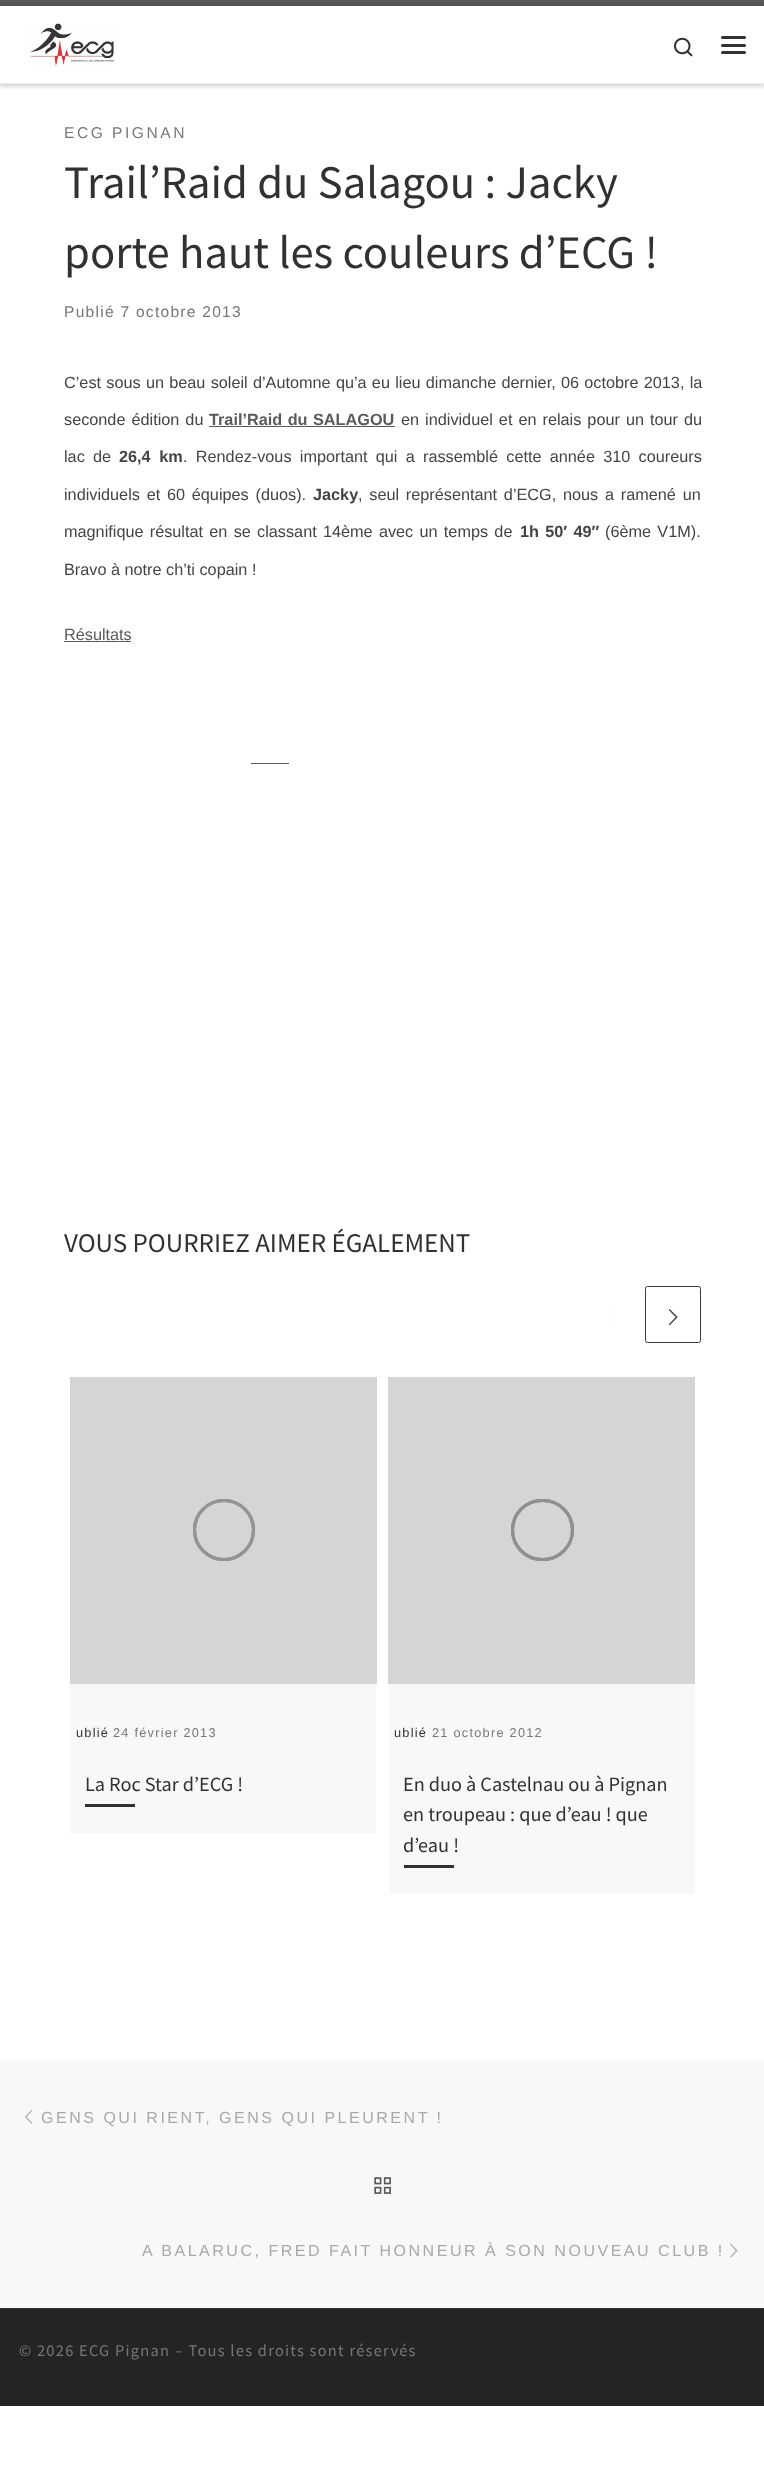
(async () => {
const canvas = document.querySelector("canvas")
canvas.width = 764
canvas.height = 2467
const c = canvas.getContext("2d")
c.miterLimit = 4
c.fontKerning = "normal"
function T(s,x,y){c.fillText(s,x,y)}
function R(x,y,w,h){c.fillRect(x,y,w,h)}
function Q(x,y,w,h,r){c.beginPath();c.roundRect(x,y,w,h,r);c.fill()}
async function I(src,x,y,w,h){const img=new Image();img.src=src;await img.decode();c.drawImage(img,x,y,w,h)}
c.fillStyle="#fff"
R(0,0,764,2467)
c.fillStyle="#66666614"
c.filter="blur(1px)"
c.beginPath()
c.rect(0,3,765,85)
c.fill()
c.filter="none"
c.fillStyle="#5a5a5a"
R(0,0,764,6)
c.fillStyle="#efefef"
R(0,84,764,1)
c.fillStyle="#00000033"
c.filter="blur(3px)"
c.beginPath()
c.rect(0,6,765,78)
c.fill()
c.filter="none"
c.fillStyle="#fff"
R(0,6,764,77)
await I("1.png",28,23,86,44)
await I("2.png",674,37,19,20)
c.fillStyle="#313131"
Q(721,36,25,3,1.5)
Q(721,44,25,3,1.5)
Q(721,51,25,3,1.5)
c.fillStyle="#f0f0f0"
R(0,83,764,1)
c.letterSpacing="2.5px"
c.font="15.6px Liberation Sans"
c.fillStyle="#777"
T("ECG PIGNAN",64,138)
c.letterSpacing="0px"
c.font="46.7px Source Sans Pro"
c.fillStyle="#303133"
T("Trail’Raid du Salagou : Jacky",64,198)
T("porte haut les couleurs d’ECG !",64,268)
c.letterSpacing="1.25px"
c.font="15.6px Liberation Sans"
c.fillStyle="#777"
T("Publié 7 octobre 2013",64,317)
c.letterSpacing="0px"
c.wordSpacing="0.75px"
c.font="16.25px Liberation Sans"
c.fillStyle="#444"
T("C’est sous un beau soleil d’Automne qu’a eu lieu dimanche dernier, 06 octobre 2013, la",64,388)
c.wordSpacing="1.5px"
T("seconde édition du",64,425)
c.wordSpacing="1px"
c.font="bold 16.25px Liberation Sans"
c.fillStyle="#5a5a5a"
T("Trail’Raid du SALAGOU",209,425)
R(209,426,186,1)
c.wordSpacing="1.5px"
c.font="16.25px Liberation Sans"
c.fillStyle="#444"
T("en individuel et en relais pour un tour du",401,425)
c.wordSpacing="3.75px"
T("lac de",64,462)
c.wordSpacing="4px"
c.font="bold 16.25px Liberation Sans"
T("26,4 km",119,462)
c.wordSpacing="3.75px"
c.font="16.25px Liberation Sans"
T(". Rendez-vous important qui a rassemblé cette année 310 coureurs",183,462)
c.wordSpacing="2.25px"
T("individuels et 60 équipes (duos).",64,500)
c.wordSpacing="0px"
c.font="bold 16.25px Liberation Sans"
T("Jacky",313,500)
c.wordSpacing="2.25px"
c.font="16.25px Liberation Sans"
T(", seul représentant d’ECG, nous a ramené un",358,500)
c.wordSpacing="1.75px"
T("magnifique résultat en se classant 14ème avec un temps de",64,537)
c.font="bold 16.25px Liberation Sans"
T("1h 50′ 49″",520,537)
c.font="16.25px Liberation Sans"
T("(6ème V1M).",605,537)
c.wordSpacing="0px"
T("Bravo à notre ch’ti copain !",64,575)
c.fillStyle="#5a5a5a"
T("Résultats",64,640)
R(64,641,67,1)
R(251,763,38,1)
c.font="27px Source Sans Pro"
c.fillStyle="#303133"
T("VOUS POURRIEZ AIMER ÉGALEMENT",64,1252)
await I("3.png",609,1310,8,15)
c.beginPath()
c.roundRect(645.5,1286.5,55,56,2)
c.strokeStyle="#3b3b3b"
c.stroke()
await I("4.png",668,1309,10,17)
c.fillStyle="#f7f8f9"
R(70,1684,306,149)
c.fillStyle="#d5d5d5"
R(70,1377,307,307)
c.beginPath()
c.arc(224,1530,29.5,0,7)
c.strokeStyle="#949494"
c.lineWidth=3
c.stroke()
c.beginPath()
c.arc(224,1530,29.5,0,7)
c.stroke()
c.beginPath()
c.arc(224,1530,29.5,0,7)
c.stroke()
c.letterSpacing="1.25px"
c.font="12.75px Liberation Sans"
c.fillStyle="#303133"
T("ublié",76,1737)
c.fillStyle="#777"
T("24 février 2013",113,1737)
c.letterSpacing="0px"
c.font="20.25px Source Sans Pro"
c.fillStyle="#303133"
T("La Roc Star d’ECG !",85,1791)
c.fillStyle="#313131"
R(85,1804,50,3)
c.fillStyle="#f7f8f9"
R(389,1684,306,210)
c.fillStyle="#d5d5d5"
R(388,1377,307,307)
c.beginPath()
c.roundRect(512.5,1500.5,60,59,29.5)
c.strokeStyle="#909090"
c.stroke()
c.beginPath()
c.roundRect(512.5,1500.5,60,59,29.5)
c.stroke()
c.beginPath()
c.roundRect(512.5,1500.5,60,59,29.5)
c.stroke()
c.letterSpacing="1.25px"
c.font="12.75px Liberation Sans"
c.fillStyle="#303133"
T("ublié",394,1737)
c.fillStyle="#777"
T("21 octobre 2012",432,1737)
c.letterSpacing="0px"
c.font="20.25px Source Sans Pro"
c.fillStyle="#303133"
T("En duo à Castelnau ou à Pignan",403,1791)
T("en troupeau : que d’eau ! que",403,1821)
T("d’eau !",403,1852)
c.fillStyle="#313131"
R(404,1865,50,3)
c.fillStyle="#f7f8f9"
R(0,2060,764,248)
await I("5.png",25,2110,8,14)
c.letterSpacing="2.5px"
c.font="16.05px Liberation Sans"
c.fillStyle="#a9a9aa"
T("GENS QUI RIENT, GENS QUI PLEURENT !",41,2123)
await I("6.png",374,2177,17,17)
T("A BALARUC, FRED FAIT HONNEUR À SON NOUVEAU CLUB !",142,2256)
await I("7.png",730,2243,8,15)
c.fillStyle="#313131"
R(0,2308,764,1)
c.fillStyle="#242424"
R(0,2309,764,97)
c.letterSpacing="1.25px"
c.font="16.4px Source Sans Pro"
c.fillStyle="#777"
T("© 2026 ECG Pignan – Tous les droits sont réservés",19,2356)
})()
